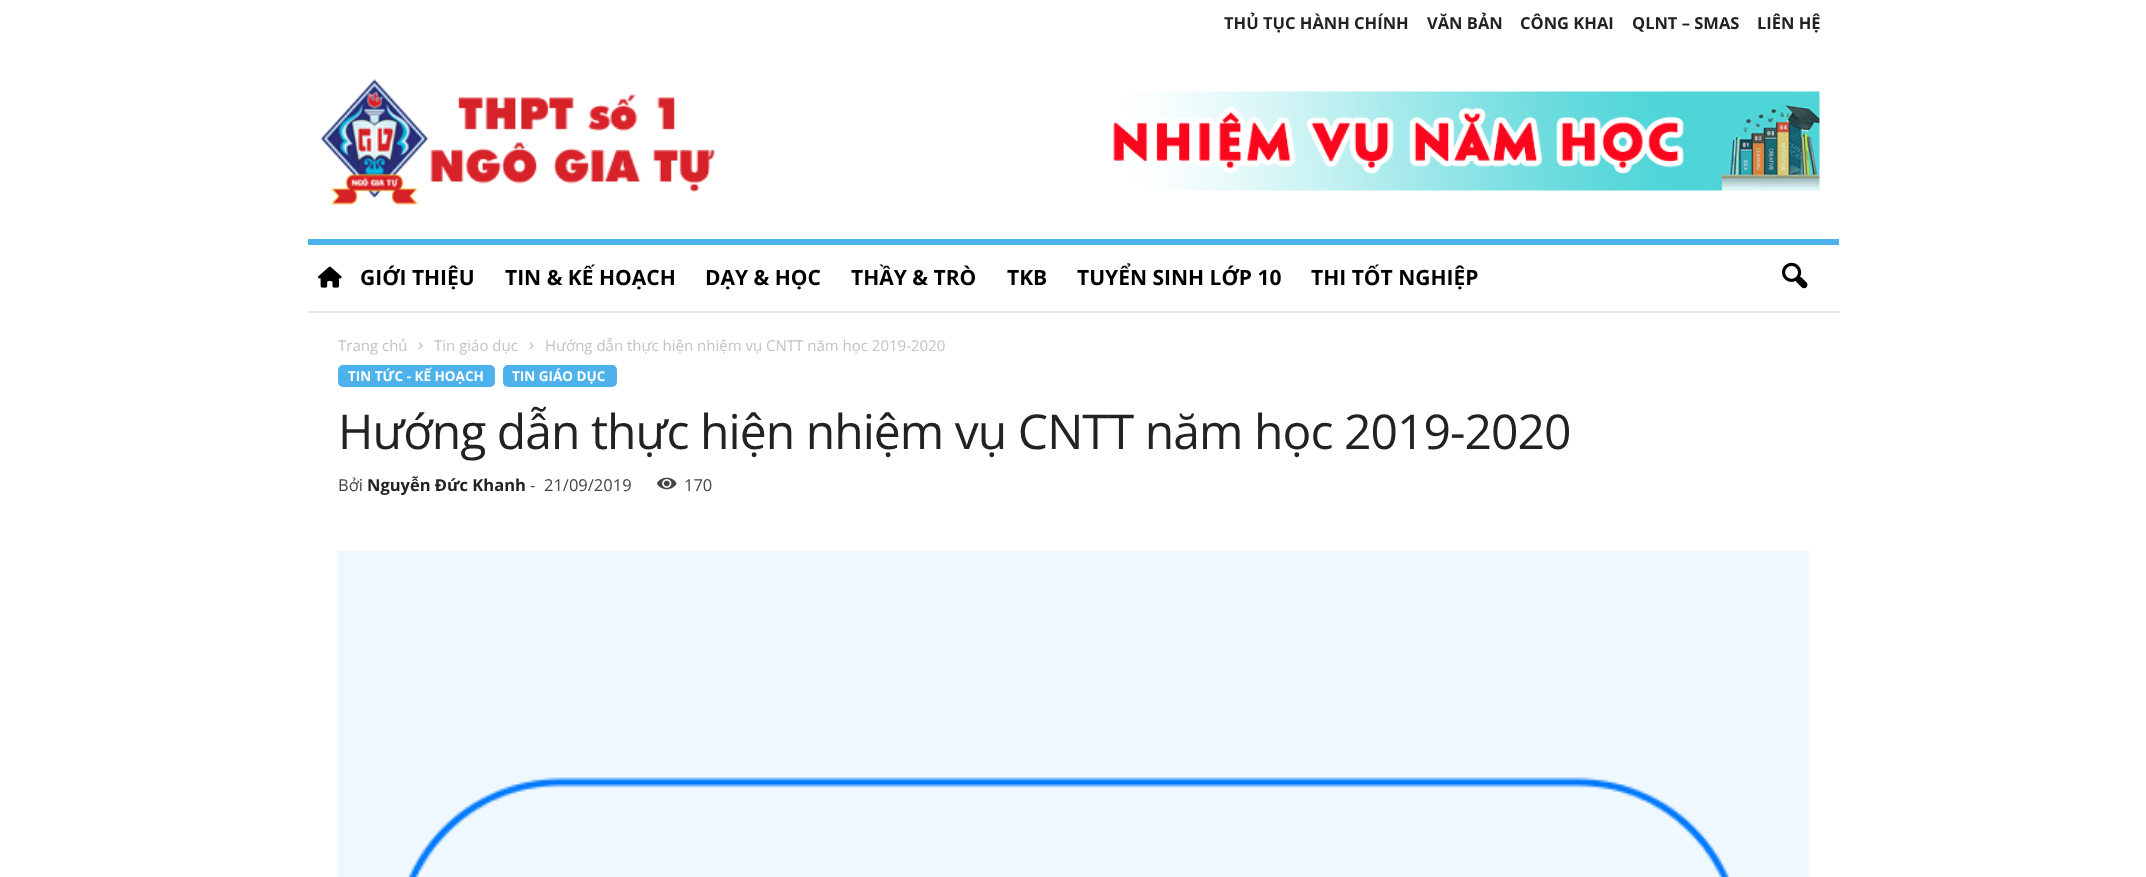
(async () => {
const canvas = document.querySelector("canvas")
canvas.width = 2146
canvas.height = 877
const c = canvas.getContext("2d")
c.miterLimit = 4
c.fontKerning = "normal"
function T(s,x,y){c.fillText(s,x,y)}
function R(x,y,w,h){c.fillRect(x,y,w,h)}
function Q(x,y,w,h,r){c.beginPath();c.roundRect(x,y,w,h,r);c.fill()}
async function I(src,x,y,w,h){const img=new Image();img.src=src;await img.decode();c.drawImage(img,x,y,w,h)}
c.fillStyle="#fff"
R(0,0,2146,877)
c.font="bold 16.5px Open Sans"
c.fillStyle="#222"
T("THỦ TỤC HÀNH CHÍNH",1224,29)
T("VĂN BẢN",1427,29)
T("CÔNG KHAI",1520,29)
T("QLNT – SMAS",1632,29)
T("LIÊN HỆ",1757,29)
await I("1.png",320,79,395,126)
await I("2.png",1113,91,707,100)
c.fillStyle="#e6e6e6"
R(308,311,1531,2)
c.fillStyle="#4db2ec"
R(308,239,1531,6)
await I("3.png",318,266,24,22)
c.font="bold 21px Open Sans"
c.fillStyle="#000"
T("GIỚI THIỆU",360,285)
T("TIN & KẾ HOẠCH",505,285)
T("DẠY & HỌC",705,285)
T("THẦY & TRÒ",851,285)
T("TKB",1007,285)
T("TUYỂN SINH LỚP 10",1077,285)
T("THI TỐT NGHIỆP",1311,285)
await I("4.png",1782,262,26,27)
c.font="15px Open Sans"
c.fillStyle="#c3c3c3"
T("Trang chủ",338,351)
await I("5.png",418,342,5,8)
T("Tin giáo dục",434,351)
await I("5.png",529,342,5,8)
T("Hướng dẫn thực hiện nhiệm vụ CNTT năm học 2019-2020",545,351)
c.fillStyle="#4db2ec"
Q(338,365,157,22,5)
c.font="bold 13.5px Open Sans"
c.fillStyle="#fff"
T("TIN TỨC - KẾ HOẠCH",348,381)
c.fillStyle="#4db2ec"
Q(503,365,114,22,5)
c.fillStyle="#fff"
T("TIN GIÁO DỤC",512,381)
c.letterSpacing="-0.95px"
c.font="48px Open Sans"
c.fillStyle="#222"
T("Hướng dẫn thực hiện nhiệm vụ CNTT năm học 2019-2020",338,449)
c.letterSpacing="0px"
c.font="16.5px Open Sans"
c.fillStyle="#444"
T("Bởi",338,491)
c.font="bold 16.5px Open Sans"
c.fillStyle="#222"
T("Nguyễn Đức Khanh",367,491)
c.font="16.5px Open Sans"
c.fillStyle="#444"
T("-",530,491)
T("21/09/2019",544,491)
await I("6.png",657,477,20,13)
T("170",684,491)
c.fillStyle="#f0f8ff"
R(338,551,1471,326)
await I("7.png",407,777,1324,100)
})()
